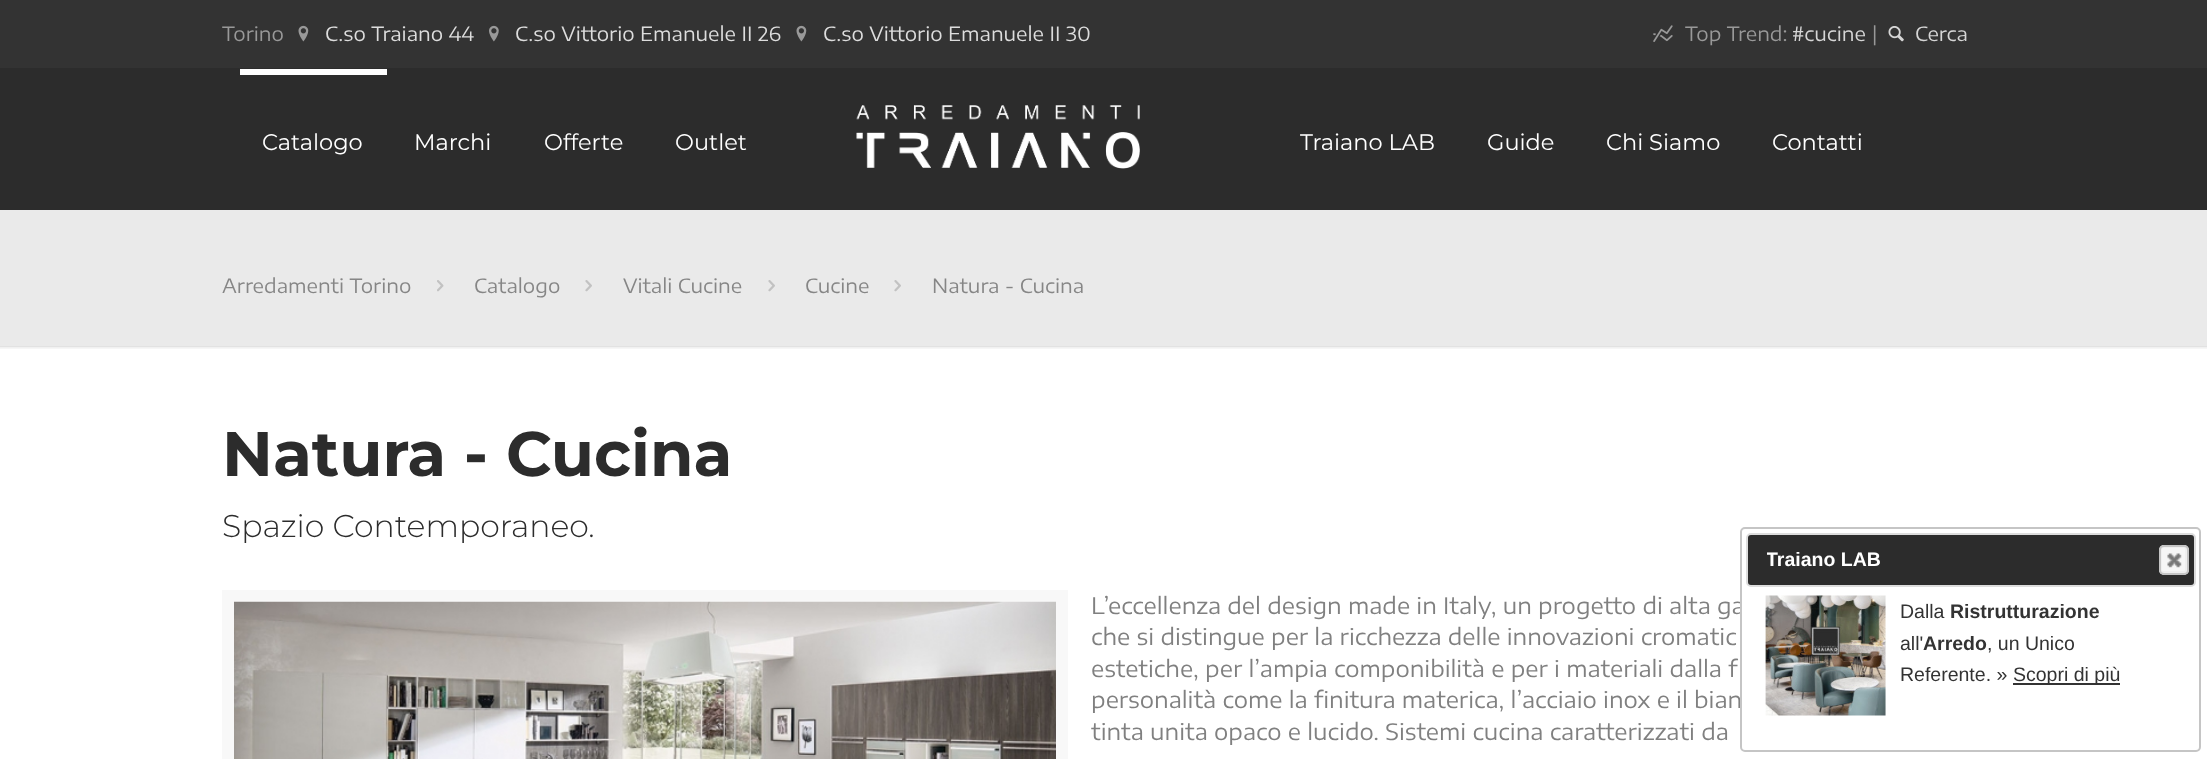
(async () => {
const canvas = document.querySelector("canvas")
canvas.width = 2207
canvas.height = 759
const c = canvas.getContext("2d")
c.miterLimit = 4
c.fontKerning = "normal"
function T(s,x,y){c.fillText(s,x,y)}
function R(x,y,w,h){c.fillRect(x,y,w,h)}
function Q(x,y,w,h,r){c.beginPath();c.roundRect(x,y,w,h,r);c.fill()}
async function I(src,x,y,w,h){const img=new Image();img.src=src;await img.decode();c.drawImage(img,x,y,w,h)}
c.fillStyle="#333"
R(0,0,2207,759)
c.font="19.5px Encode Sans Expanded"
c.fillStyle="#999"
T("Torino",222,41)
await I("1.png",298,25,11,17)
c.fillStyle="#ddd"
T("C.so Traiano 44",325,41)
await I("2.png",489,25,10,17)
T("C.so Vittorio Emanuele II 26",515,41)
await I("1.png",796,25,11,17)
T("C.so Vittorio Emanuele II 30",823,41)
await I("3.png",1653,25,20,17)
c.fillStyle="#999"
T("Top Trend:",1685,41)
c.fillStyle="#d6d6d6"
T("#cucine",1792,41)
c.fillStyle="#999"
T("|",1872,41)
await I("4.png",1888,26,16,16)
c.fillStyle="#d6d6d6"
T("Cerca",1915,41)
c.fillStyle="#2c2c2c"
R(0,68,2207,142)
await I("5.png",856,105,284,64)
c.fillStyle="#fff"
R(240,69,147,6)
c.font="22.5px Montserrat"
T("Catalogo",262,150)
T("Marchi",414,150)
T("Offerte",544,150)
T("Outlet",675,150)
T("Traiano LAB",1300,150)
T("Guide",1487,150)
T("Chi Siamo",1606,150)
T("Contatti",1772,150)
c.fillStyle="#eaeaea"
R(0,210,2207,137)
c.font="19.5px Encode Sans Expanded"
c.fillStyle="#868686"
T("Arredamenti Torino",222,293)
await I("6.png",437,280,7,12)
T("Catalogo",474,293)
await I("7.png",585,280,7,12)
T("Vitali Cucine",623,293)
await I("7.png",768,280,7,12)
T("Cucine",805,293)
await I("7.png",894,280,7,12)
T("Natura - Cucina",932,293)
c.fillStyle="#fff"
R(0,347,2207,412)
await I("8.png",0,346,2207,3)
c.font="bold 63px Montserrat"
c.fillStyle="#2c2c2c"
T("Natura - Cucina",222,476)
c.font="300 31.5px Montserrat"
T("Spazio Contemporaneo.",222,537)
c.strokeStyle="#f8f8f8"
c.lineWidth=12
c.strokeRect(228,596,834,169)
await I("9.png",234,601,822,158)
c.font="22.5px Encode Sans Expanded"
c.fillStyle="#808080"
T("L’eccellenza del design made in Italy, un progetto di alta ga",1091,614)
T("che si distingue per la ricchezza delle innovazioni cromatic",1091,645)
T("estetiche, per l’ampia componibilità e per i materiali dalla f",1091,677)
T("personalità come la finitura materica, l’acciaio inox e il bian",1091,708)
T("tinta unita opaco e lucido. Sistemi cucina caratterizzati da",1091,740)
c.fillStyle="#fff"
c.beginPath()
c.roundRect(1741,528,459,223,4)
c.fill()
c.strokeStyle="#c5c5c5"
c.lineWidth=2
c.stroke()
c.fillStyle="#2c2c2c"
c.beginPath()
c.roundRect(1747,534,448,52,4)
c.fill()
c.strokeStyle="#ddd"
c.stroke()
c.save()
c.beginPath()
c.rect(1767,543,366,32)
c.clip()
c.font="bold 19.5px Liberation Sans"
c.fillStyle="#fff"
T("Traiano LAB",1766,566)
c.restore()
c.fillStyle="#f6f6f6"
Q(2159,545,30,30,5)
c.beginPath()
c.roundRect(2161,547,25,25,2)
c.strokeStyle="#efefef"
c.stroke()
c.beginPath()
c.roundRect(2160,546,28,28,4)
c.strokeStyle="#c5c5c5"
c.stroke()
await I("10.png",2167,553,15,15)
await I("11.png",1765,595,121,121)
c.font="19.5px Liberation Sans"
c.fillStyle="#333"
T("Dalla",1900,618)
c.font="bold 19.5px Liberation Sans"
T("Ristrutturazione",1950,618)
c.font="19.5px Liberation Sans"
T("all'",1900,650)
c.font="bold 19.5px Liberation Sans"
T("Arredo",1923,650)
c.font="19.5px Liberation Sans"
T(", un Unico",1987,650)
T("Referente. »",1900,681)
R(2013,683,107,2)
T("Scopri di più",2013,681)
})()
